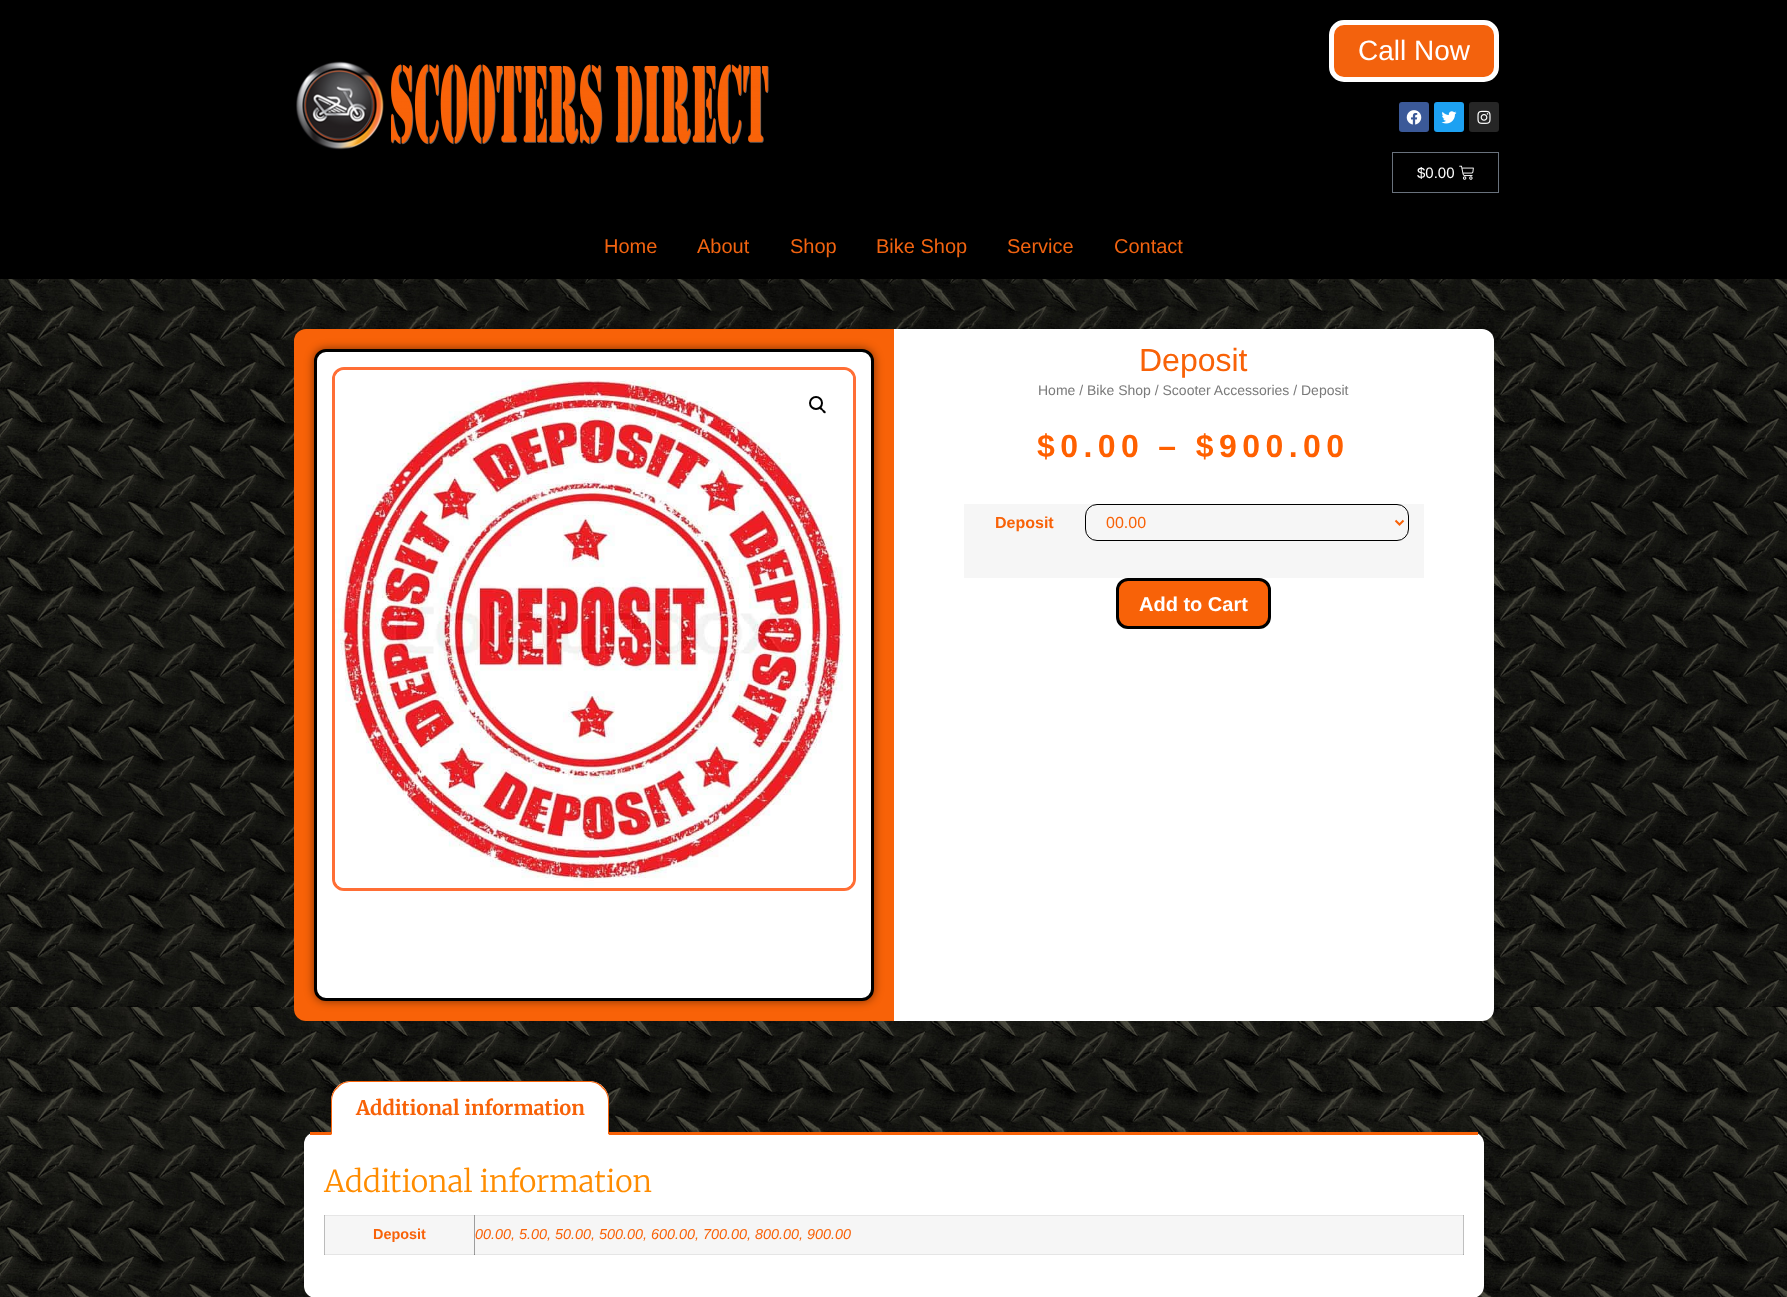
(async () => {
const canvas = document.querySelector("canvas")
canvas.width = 1787
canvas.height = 1297
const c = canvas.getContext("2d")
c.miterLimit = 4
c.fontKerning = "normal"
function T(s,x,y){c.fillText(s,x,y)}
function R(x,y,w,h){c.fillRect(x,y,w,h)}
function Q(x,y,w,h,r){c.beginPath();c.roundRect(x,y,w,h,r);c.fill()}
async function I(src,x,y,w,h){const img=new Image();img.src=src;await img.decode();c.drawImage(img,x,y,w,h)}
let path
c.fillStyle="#fff"
R(0,0,1787,1297)
await I("1.png",0,279,1787,1018)
c.fillStyle="#000"
R(0,0,1787,279)
await I("2.png",296,61,473,89)
c.fillStyle="#f3620d"
c.beginPath()
c.roundRect(1331.5,22.5,165,57,12.5)
c.fill()
c.strokeStyle="#fff"
c.lineWidth=5
c.stroke()
c.font="28px Liberation Sans"
c.fillStyle="#fff"
T("Call Now",1358,60)
c.fillStyle="#3b5998"
Q(1399,102,30,30,3)
await I("3.png",1406,110,16,15)
c.fillStyle="#1da1f2"
Q(1434,102,30,30,3)
await I("4.png",1441,111,16,13)
c.fillStyle="#262626"
Q(1469,102,30,30,3)
await I("5.png",1477,110,14,14)
c.strokeStyle="#69727d"
c.lineWidth=1
c.strokeRect(1392.5,152.5,106,40)
c.font="15px Liberation Sans"
c.fillStyle="#fff"
T("$0.00",1417,178)
await I("6.png",1459,165,15,15)
c.font="20px Liberation Sans"
c.fillStyle="#f16310"
T("Home",604,253)
T("About",697,253)
T("Shop",790,253)
T("Bike Shop",876,253)
T("Service",1007,253)
T("Contact",1114,253)
c.fillStyle="#f86208"
c.beginPath()
c.roundRect(294,329,600,692,[12,0,0,12])
c.fill()
c.fillStyle="#00000080"
c.filter="blur(5px)"
c.beginPath()
c.roundRect(314,349,560,652,12)
c.fill()
c.filter="none"
c.fillStyle="#fff"
c.beginPath()
c.roundRect(315.5,350.5,557,649,10.5)
c.fill()
c.strokeStyle="#000"
c.lineWidth=3
c.stroke()
c.beginPath()
c.roundRect(333.5,368.5,521,521,10.5)
c.strokeStyle="#ff6e35"
c.stroke()
await I("7.png",335,370,518,518)
c.beginPath()
c.arc(816,403,6,0,7)
c.strokeStyle="#000"
c.lineWidth=2
c.stroke()
c.fillStyle="#000"
path = new Path2D("M819.5 407c1.5-1 3 1.5 3.5 2.5c1 .5 3.5 2 2.5 3.5c-1.5 1-3-1.5-3.5-2.5c-1-.5-3.5-2-2.5-3.5z")
c.fill(path)
c.fillStyle="#fff"
c.beginPath()
c.roundRect(894,329,600,692,[0,12,12,0])
c.fill()
c.font="32px Liberation Sans"
c.fillStyle="#f86208"
T("Deposit",1139,371)
c.font="14px Liberation Sans"
c.fillStyle="#7a7a7a"
T("Home / Bike Shop / Scooter Accessories / Deposit",1038,395)
c.letterSpacing="5.4px"
c.font="bold 32px Liberation Sans"
c.fillStyle="#ff6000"
T("$0.00 – $900.00",1037,457)
c.fillStyle="#f6f6f6"
R(964,504,460,74)
c.letterSpacing="0px"
c.font="bold 16px Liberation Sans"
c.fillStyle="#f86208"
T("Deposit",995,528)
c.beginPath()
c.roundRect(1085.5,504.5,323,36,11.5)
c.lineWidth=1
c.stroke()
path = new Path2D("M1395.5 520.5l4 4l4-4")
c.strokeStyle="#f86208"
c.lineWidth=2
c.stroke(path)
c.font="16px Liberation Sans"
T("00.00",1106,528)
c.beginPath()
c.roundRect(1117.5,579.5,152,48,10.5)
c.fill()
c.strokeStyle="#000"
c.lineWidth=3
c.stroke()
c.font="bold 20px Liberation Sans"
c.fillStyle="#fff"
T("Add to Cart",1139,611)
Q(304,1132,1180,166,12)
c.fillStyle="#f86208"
R(310,1132,1168,3)
c.fillStyle="#fff"
c.beginPath()
c.roundRect(331,1081,278,54,[20,20,0,0])
c.fill()
c.fillStyle="#f86208"
path = new Path2D("M351 1081c-5 0-11 2-14 6l1 1c3-4 8-6 13-6h238c5 0 10 2 13 6l1-1c-3-4-9-6-14-6z")
c.fill(path)
path = new Path2D("M609 1135v-34c0-5-2-11-6-14l-1 1c4 3 6 8 6 13v33z")
c.fill(path)
c.fillStyle="#fff"
path = new Path2D("M609 1135l-1-1h-276l-1 1z")
c.fill(path)
c.fillStyle="#f86208"
path = new Path2D("M331 1135l1-1v-33c0-5 2-10 6-13l-1-1c-4 3-6 9-6 14z")
c.fill(path)
c.font="bold 20px Merriweather"
T("Additional information",356,1115)
c.font="300 30px Merriweather"
c.fillStyle="#ff8c00"
T("Additional information",324,1192)
c.fillStyle="#e6e6e6"
R(324,1215,1140,1)
c.fillStyle="#f6f6f6"
R(324,1216,1139,38)
c.fillStyle="#80808080"
R(1463,1215,1,40)
c.fillStyle="#0000001a"
R(474,1254,990,1)
c.fillStyle="#80808080"
R(474,1215,1,40)
R(474,1215,1,40)
c.fillStyle="#0000001a"
R(324,1254,151,1)
c.fillStyle="#80808080"
R(324,1215,1,40)
c.font="bold 14.4px Liberation Sans"
c.fillStyle="#f86208"
T("Deposit",373,1239)
c.font="italic 14.4px Liberation Sans"
T("00.00, 5.00, 50.00, 500.00, 600.00, 700.00, 800.00, 900.00",475,1239)
})()
